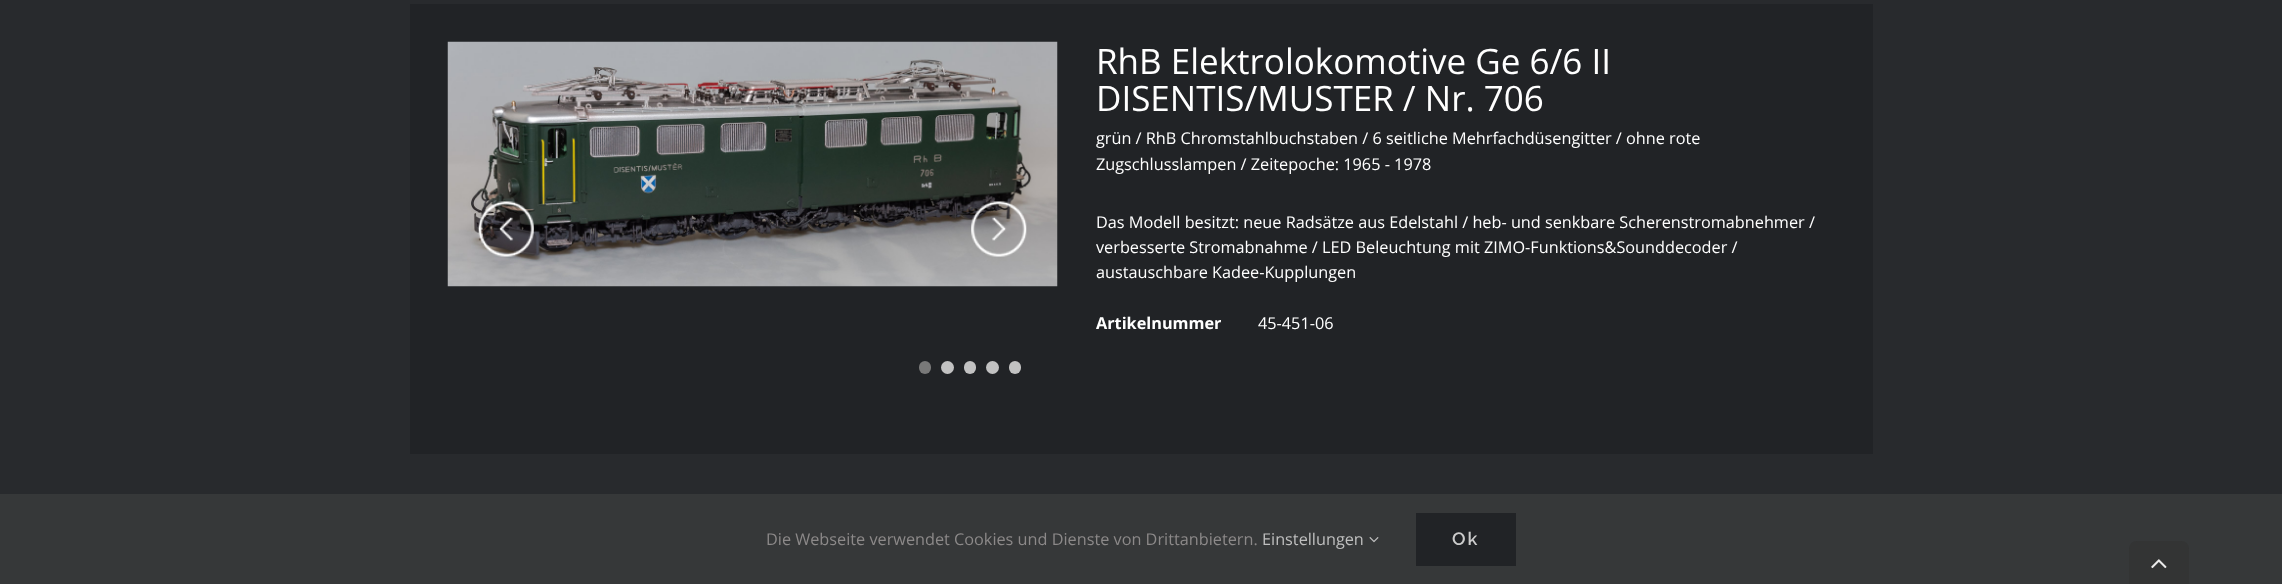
(async () => {
const canvas = document.querySelector("canvas")
canvas.width = 2282
canvas.height = 584
const c = canvas.getContext("2d")
c.miterLimit = 4
c.fontKerning = "normal"
function T(s,x,y){c.fillText(s,x,y)}
function R(x,y,w,h){c.fillRect(x,y,w,h)}
function Q(x,y,w,h,r){c.beginPath();c.roundRect(x,y,w,h,r);c.fill()}
async function I(src,x,y,w,h){const img=new Image();img.src=src;await img.decode();c.drawImage(img,x,y,w,h)}
let path
c.fillStyle="#282a2d"
R(0,0,2282,584)
c.fillStyle="#212326"
R(410,4,1463,450)
await I("1.png",447,41,611,246)
await I("2.png",478,201,56,56)
await I("3.png",971,201,56,56)
c.fillStyle="#797979"
Q(919,361,12,13,6)
c.fillStyle="#c2c2c2"
c.beginPath()
c.arc(947.5,367.5,6.5,0,7)
c.fill()
Q(964,361,12,13,6)
c.beginPath()
c.arc(992.5,367.5,6.5,0,7)
c.fill()
Q(1009,361,12,13,6)
c.font="35px Open Sans"
c.fillStyle="#fff"
T("RhB Elektrolokomotive Ge 6/6 II",1096,74)
T("DISENTIS/MUSTER / Nr. 706",1096,111)
c.font="16.25px Open Sans"
T("grün / RhB Chromstahlbuchstaben / 6 seitliche Mehrfachdüsengitter / ohne rote",1096,144)
T("Zugschlusslampen / Zeitepoche: 1965 - 1978",1096,170)
T("Das Modell besitzt: neue Radsätze aus Edelstahl / heb- und senkbare Scherenstromabnehmer /",1096,228)
T("verbesserte Stromabnahme / LED Beleuchtung mit ZIMO-Funktions&Sounddecoder /",1096,253)
T("austauschbare Kadee-Kupplungen",1096,278)
c.font="bold 16.25px Open Sans"
T("Artikelnummer",1096,329)
c.font="16.25px Open Sans"
T("45-451-06",1258,329)
c.fillStyle="#363839"
R(0,494,2282,90)
c.fillStyle="#8c8989"
T("Die Webseite verwendet Cookies und Dienste von Drittanbietern.",766,545)
c.fillStyle="#bfbfbf"
T("Einstellungen",1262,545)
await I("4.png",1369,537,10,6)
c.fillStyle="#212326"
R(1416,513,100,53)
c.letterSpacing="2px"
c.font="600 18px Raleway"
c.fillStyle="#ccc"
T("Ok",1452,545)
c.fillStyle="#333434"
path = new Path2D("M2137 541h44c4.5 0 8 3.5 8 8v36h-60v-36c0-4.5 3.5-8 8-8z")
c.fill(path)
await I("5.png",2151,559,16,10)
})()
